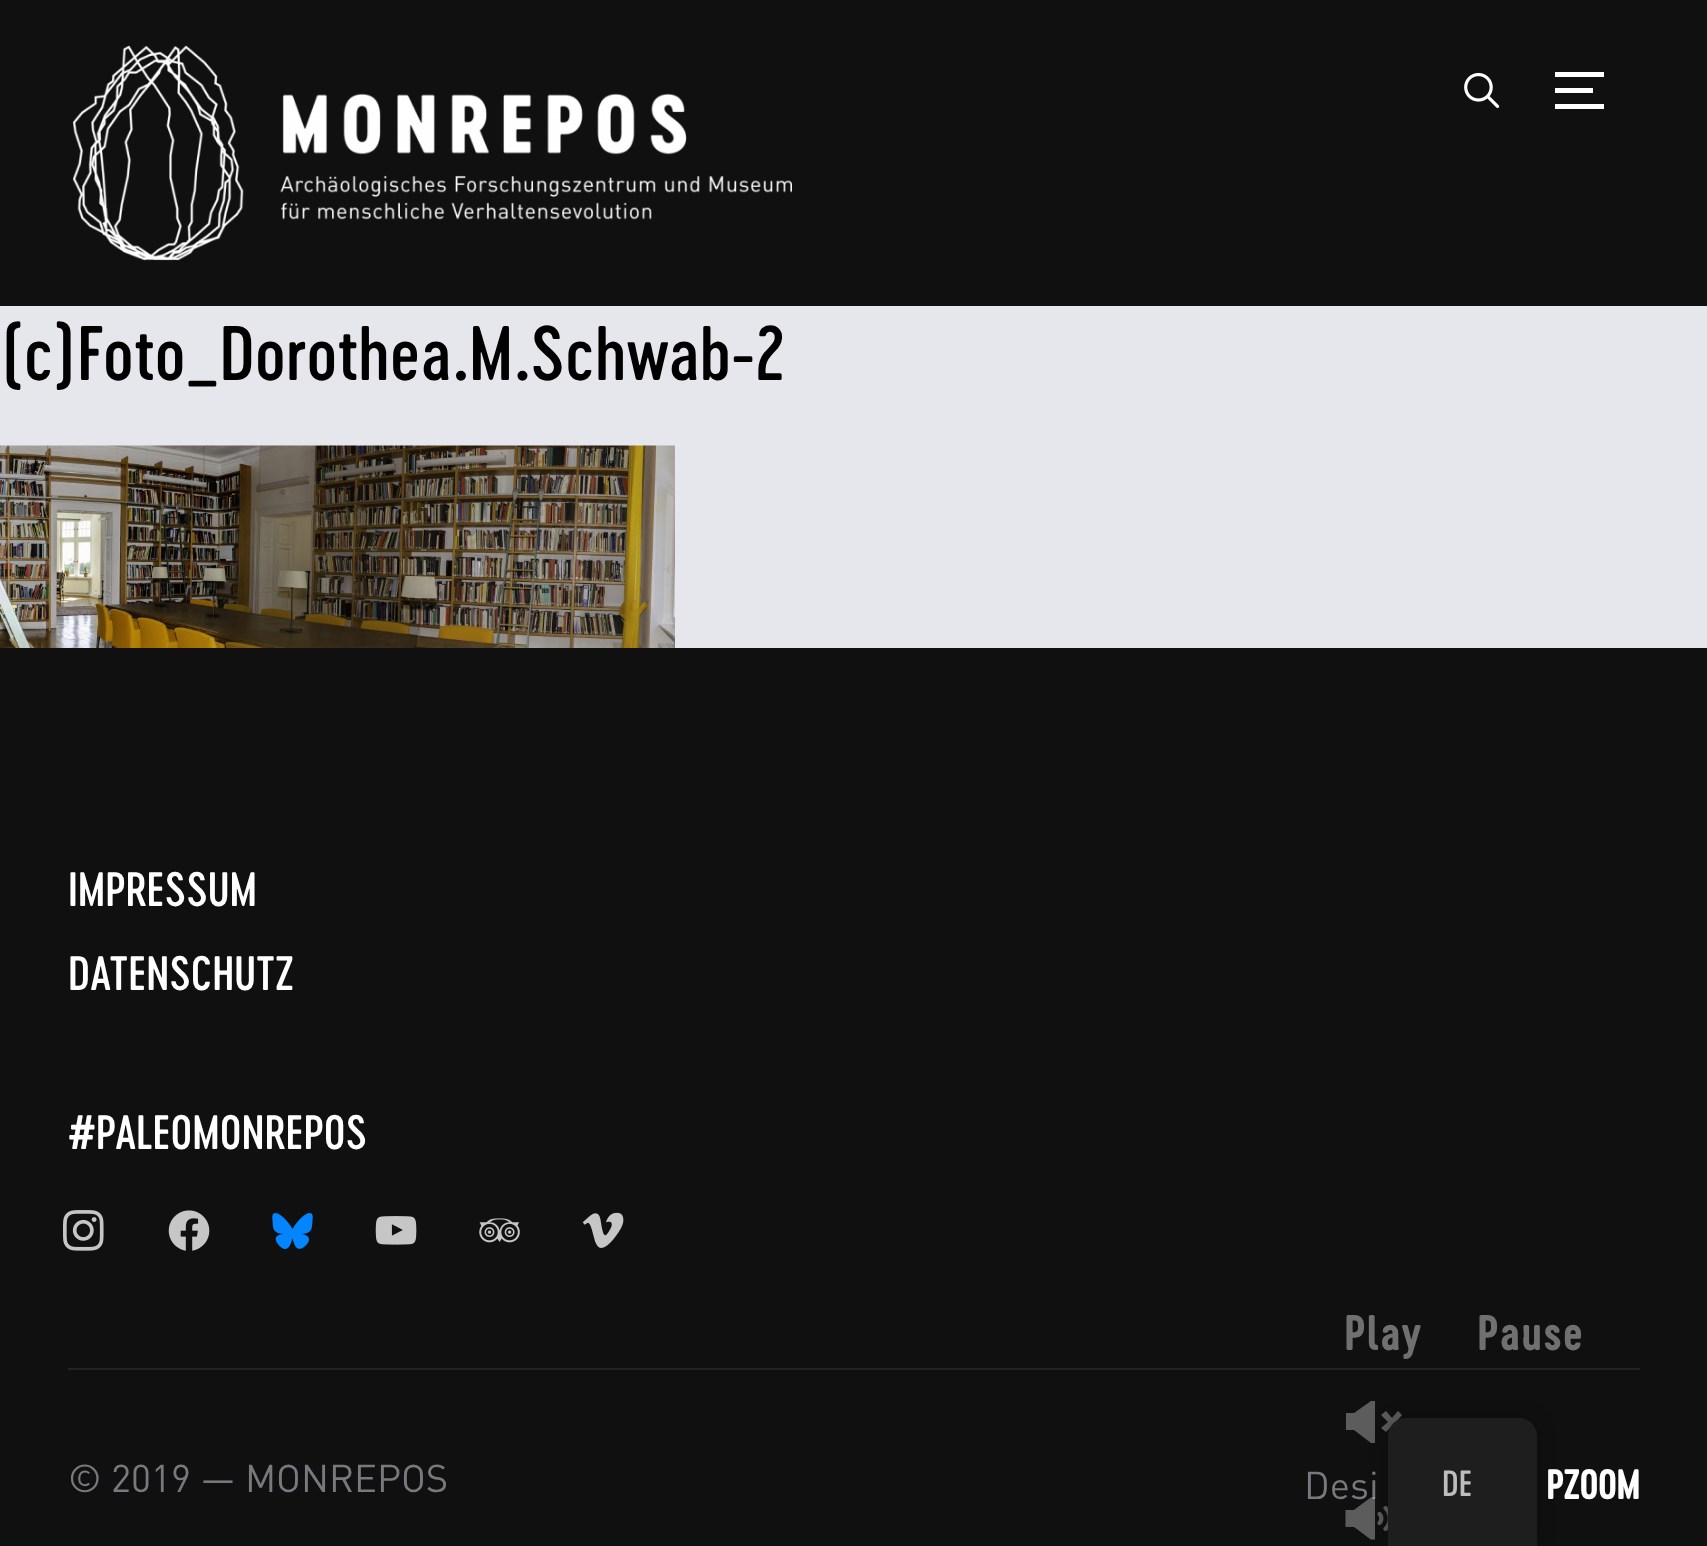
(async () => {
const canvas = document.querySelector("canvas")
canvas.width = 1707
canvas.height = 1546
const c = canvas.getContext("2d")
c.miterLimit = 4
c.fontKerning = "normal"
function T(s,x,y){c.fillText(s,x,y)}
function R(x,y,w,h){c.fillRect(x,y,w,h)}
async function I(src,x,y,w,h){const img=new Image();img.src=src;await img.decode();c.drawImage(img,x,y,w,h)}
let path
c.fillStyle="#e6e7ed"
R(0,0,1707,1546)
c.fillStyle="#101010"
R(0,0,1707,306)
await I("1.png",72,45,720,216)
await I("2.png",1464,72,36,36)
c.fillStyle="#fff"
R(1555,72,49,5)
R(1555,88,38,5)
R(1555,104,49,5)
c.font="500 72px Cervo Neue"
c.fillStyle="#000"
T("(c)Foto_Dorothea.M.Schwab-2",0,380)
c.fillStyle="#101010"
R(0,648,1707,898)
c.letterSpacing="2.25px"
c.font="bold 45px Cervo Neue"
c.fillStyle="#707070"
T("Play",1344,1350)
T("Pause",1477,1350)
c.fillStyle="#5c5c5c"
path = new Path2D("M1354 1413h-8v17h8l17 13h4v-42h-4zm48 2l-4-4l-6 7l-6-7l-5 4l7 7l-7 6l5 4l6-6l6 6l4-4l-6-6z")
c.fill(path)
c.letterSpacing="0px"
c.font="38.25px DIN"
c.fillStyle="#78787f"
T("Desi",1304,1499)
await I("3.png",1345,1497,43,43)
await I("4.png",0,445,675,203)
c.font="500 45px Cervo Neue"
c.fillStyle="#fff"
T("IMPRESSUM",68,906)
T("DATENSCHUTZ",68,990)
T("#PALEOMONREPOS",68,1149)
await I("5.png",63,1210,41,41)
await I("6.png",168,1210,42,41)
await I("7.png",272,1213,41,36)
await I("8.png",375,1216,42,29)
await I("9.png",479,1218,41,25)
await I("10.png",582,1212,42,36)
c.fillStyle="#232323"
R(68,1368,1572,2)
c.font="38.25px DIN"
c.fillStyle="#78787f"
T("© 2019 — MONREPOS",68,1492)
c.font="bold 38.25px Cervo Neue"
c.fillStyle="#fff"
T("PZOOM",1546,1499)
c.fillStyle="#00000040"
c.filter="blur(9px)"
c.beginPath()
c.roundRect(1388,1418,149,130,18)
c.fill()
c.filter="none"
c.fillStyle="#1e1e1e"
path = new Path2D("M1406 1418h113c10 0 18 8 18 18v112h-149v-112c0-10 8-18 18-18z")
c.fill(path)
c.font="500 34px Cervo Neue"
c.fillStyle="#bdbdbd"
T("DE",1442,1496)
})()
